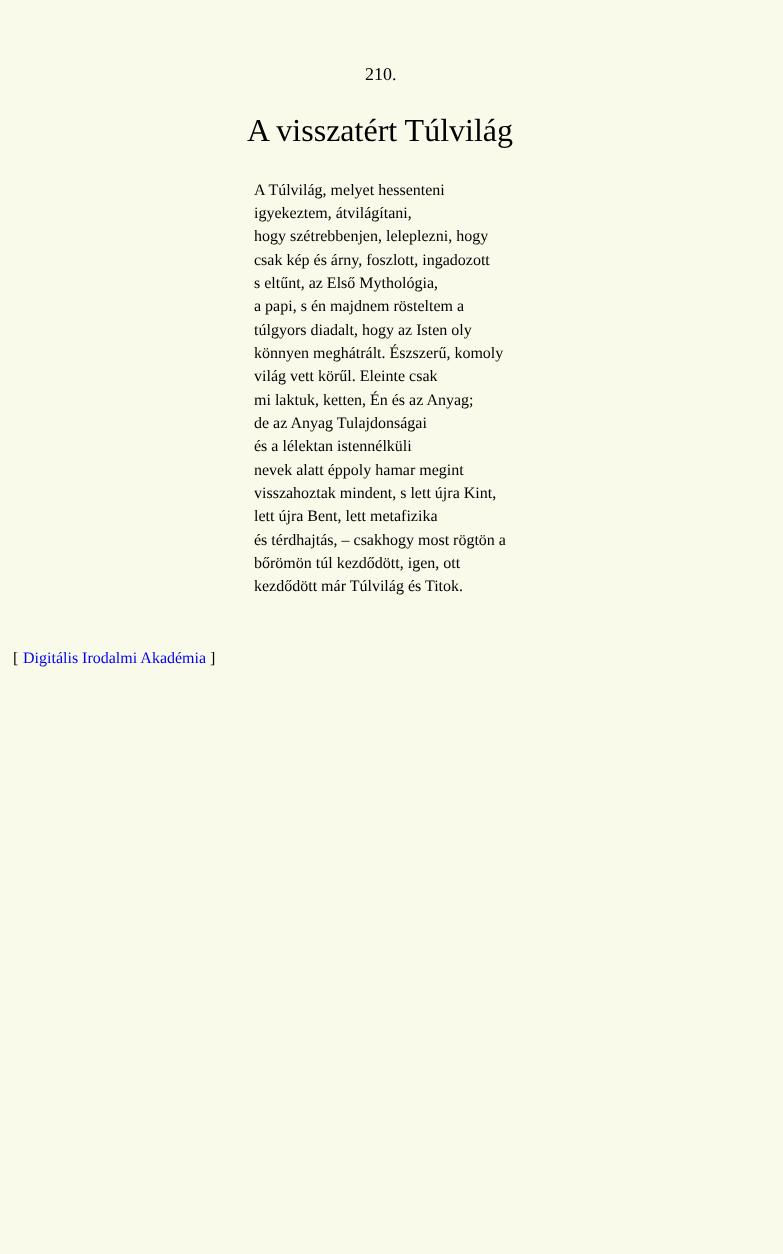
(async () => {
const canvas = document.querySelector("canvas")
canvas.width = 783
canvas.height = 1254
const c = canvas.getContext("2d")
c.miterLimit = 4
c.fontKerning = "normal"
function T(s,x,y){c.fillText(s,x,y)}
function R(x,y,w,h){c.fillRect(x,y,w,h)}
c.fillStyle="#fafaea"
R(0,0,783,1254)
c.font="18px Liberation Serif"
c.fillStyle="#000"
T("210.",365,80)
c.font="32px Liberation Serif"
T("A visszatért Túlvilág",247,141)
c.font="16px Liberation Serif"
T("A Túlvilág, melyet hessenteni",254,195)
T("igyekeztem, átvilágítani,",254,218)
T("hogy szétrebbenjen, leleplezni, hogy",254,241)
T("csak kép és árny, foszlott, ingadozott",254,265)
T("s eltűnt, az Első Mythológia,",254,288)
T("a papi, s én majdnem rösteltem a",254,311)
T("túlgyors diadalt, hogy az Isten oly",254,335)
T("könnyen meghátrált. Észszerű, komoly",254,358)
T("világ vett körűl. Eleinte csak",254,381)
T("mi laktuk, ketten, Én és az Anyag;",254,405)
T("de az Anyag Tulajdonságai",254,428)
T("és a lélektan istennélküli",254,451)
T("nevek alatt éppoly hamar megint",254,475)
T("visszahoztak mindent, s lett újra Kint,",254,498)
T("lett újra Bent, lett metafizika",254,521)
T("és térdhajtás, – csakhogy most rögtön a",254,545)
T("bőrömön túl kezdődött, igen, ott",254,568)
T("kezdődött már Túlvilág és Titok.",254,591)
T("[",13,663)
c.fillStyle="#00e"
T("Digitális Irodalmi Akadémia",23,663)
c.fillStyle="#000"
T("]",210,663)
})()
